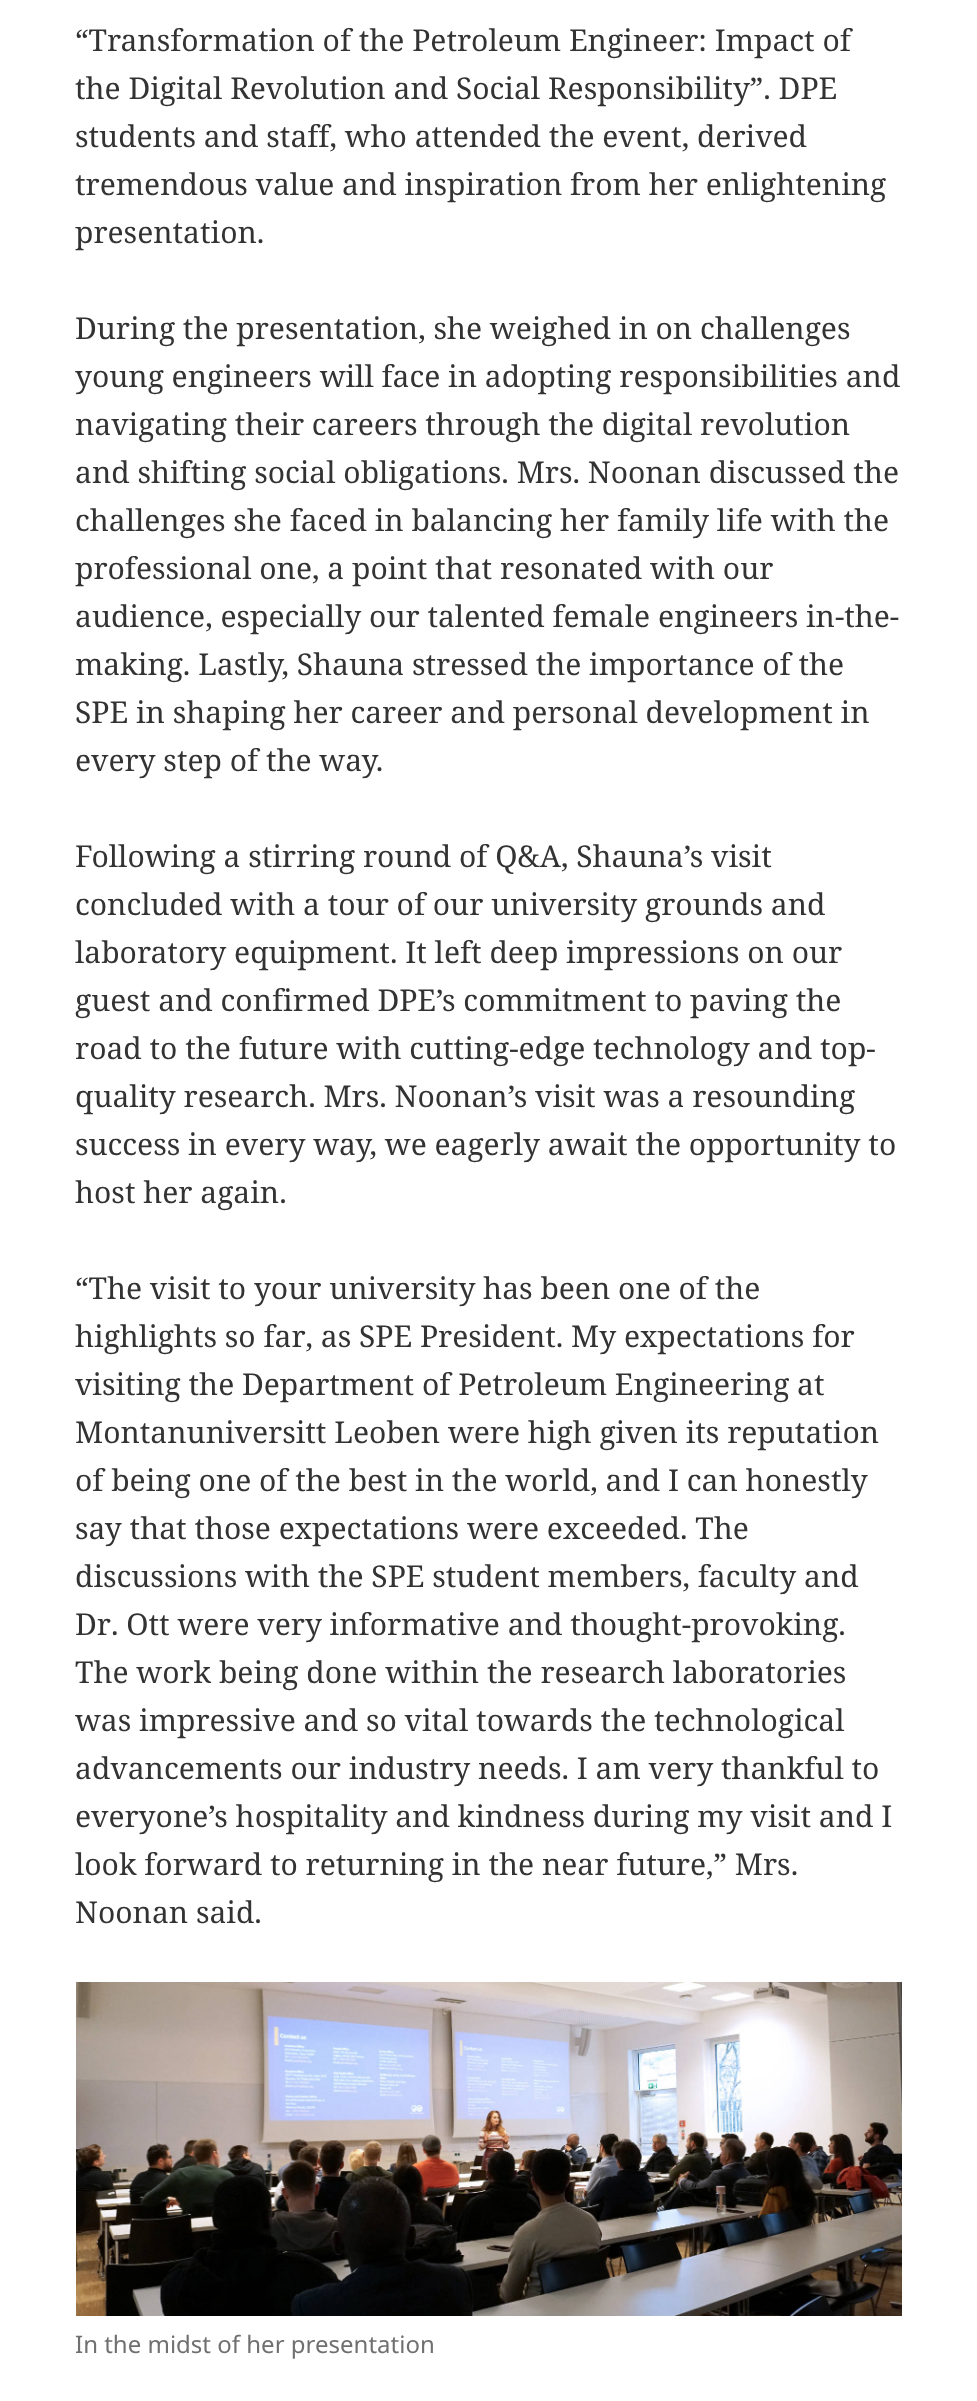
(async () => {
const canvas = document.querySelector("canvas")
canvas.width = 977
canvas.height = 2401
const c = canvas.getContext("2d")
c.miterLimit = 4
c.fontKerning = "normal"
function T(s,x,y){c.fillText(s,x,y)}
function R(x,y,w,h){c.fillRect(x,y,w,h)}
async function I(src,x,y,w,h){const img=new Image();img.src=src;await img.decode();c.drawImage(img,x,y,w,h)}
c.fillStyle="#fff"
R(0,0,977,2401)
c.font="30px Noto Serif"
c.fillStyle="#333"
T("“Transformation of the Petroleum Engineer: Impact of",75,51)
T("the Digital Revolution and Social Responsibility”. DPE",75,99)
T("students and staff, who attended the event, derived",75,147)
T("tremendous value and inspiration from her enlightening",75,195)
T("presentation.",75,243)
T("During the presentation, she weighed in on challenges",75,339)
T("young engineers will face in adopting responsibilities and",75,387)
T("navigating their careers through the digital revolution",75,435)
T("and shifting social obligations. Mrs. Noonan discussed the",75,483)
T("challenges she faced in balancing her family life with the",75,531)
T("professional one, a point that resonated with our",75,579)
T("audience, especially our talented female engineers in-the-",75,627)
T("making. Lastly, Shauna stressed the importance of the",75,675)
T("SPE in shaping her career and personal development in",75,723)
T("every step of the way.",75,771)
T("Following a stirring round of Q&A, Shauna’s visit",75,867)
T("concluded with a tour of our university grounds and",75,915)
T("laboratory equipment. It left deep impressions on our",75,963)
T("guest and confirmed DPE’s commitment to paving the",75,1011)
T("road to the future with cutting-edge technology and top-",75,1059)
T("quality research. Mrs. Noonan’s visit was a resounding",75,1107)
T("success in every way, we eagerly await the opportunity to",75,1155)
T("host her again.",75,1203)
T("“The visit to your university has been one of the",75,1299)
T("highlights so far, as SPE President. My expectations for",75,1347)
T("visiting the Department of Petroleum Engineering at",75,1395)
T("Montanuniversitt Leoben were high given its reputation",75,1443)
T("of being one of the best in the world, and I can honestly",75,1491)
T("say that those expectations were exceeded. The",75,1539)
T("discussions with the SPE student members, faculty and",75,1587)
T("Dr. Ott were very informative and thought-provoking.",75,1635)
T("The work being done within the research laboratories",75,1683)
T("was impressive and so vital towards the technological",75,1731)
T("advancements our industry needs. I am very thankful to",75,1779)
T("everyone’s hospitality and kindness during my visit and I",75,1827)
T("look forward to returning in the near future,” Mrs.",75,1875)
T("Noonan said.",75,1923)
await I("1.png",76,1982,826,334)
c.font="24px Noto Sans"
c.fillStyle="#707070"
T("In the midst of her presentation",75,2353)
})()
